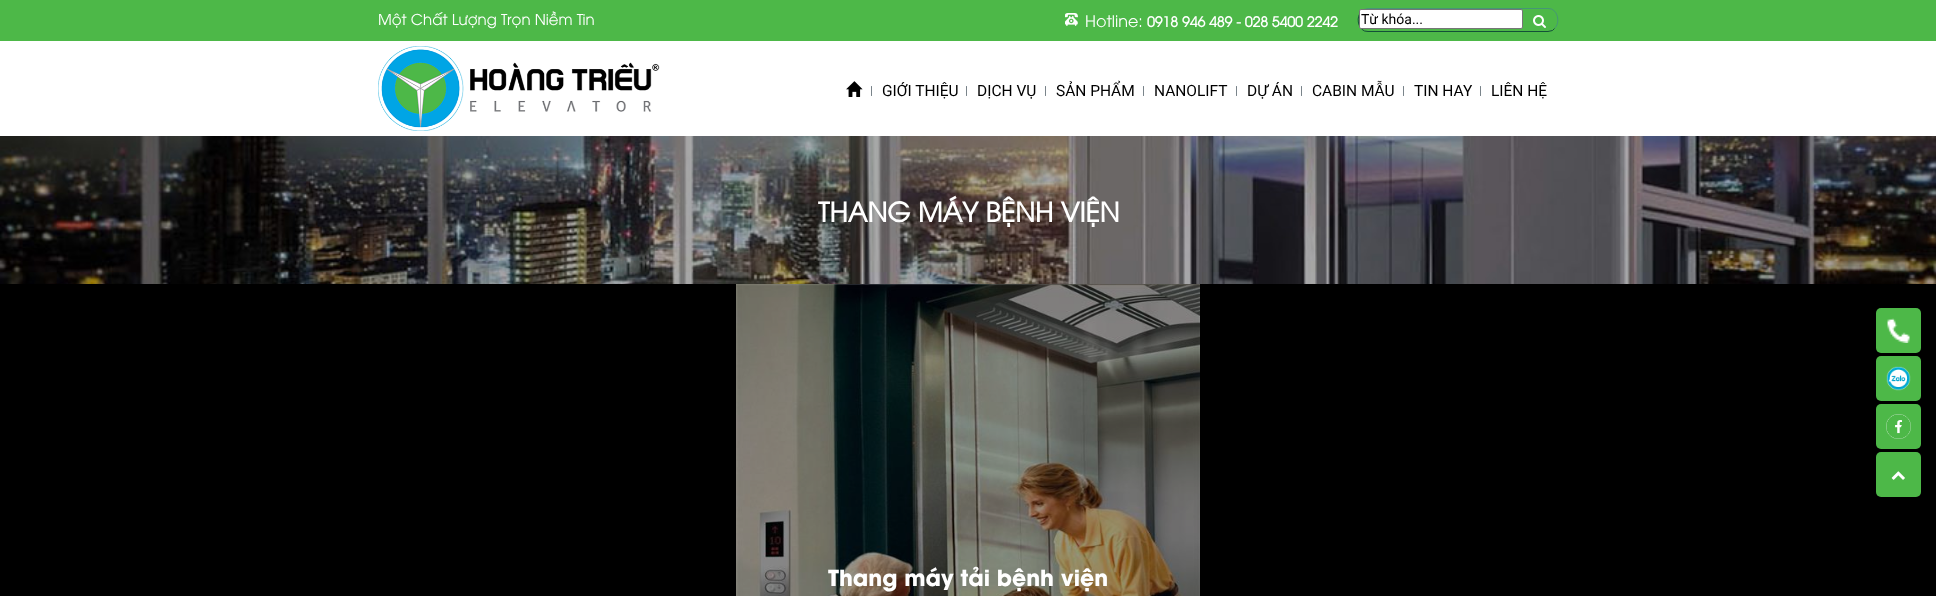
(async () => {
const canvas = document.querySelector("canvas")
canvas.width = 1936
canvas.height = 596
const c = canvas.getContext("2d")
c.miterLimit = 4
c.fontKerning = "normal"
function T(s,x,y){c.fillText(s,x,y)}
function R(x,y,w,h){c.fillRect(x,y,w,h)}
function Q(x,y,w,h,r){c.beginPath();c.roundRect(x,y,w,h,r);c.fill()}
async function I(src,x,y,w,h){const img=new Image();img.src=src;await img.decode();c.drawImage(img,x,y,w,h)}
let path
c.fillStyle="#fff"
R(0,0,1936,596)
c.fillStyle="#4db848"
R(0,0,1936,41)
c.font="15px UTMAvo"
c.fillStyle="#fff"
T("Một Chất Lượng Trọn Niềm Tin",378,25)
await I("1.png",1065,13,13,13)
c.font="16px UTMAvo"
T("Hotline:",1085,27)
c.font="bold 14px UTMAvo"
T("0918 946 489 - 028 5400 2242",1147,27)
path = new Path2D("M1361.5 11.5l2-2l4.5-1h180l3.5 .5c7 3 8.5 14.5 3 19.5")
c.strokeStyle="#459775"
c.stroke(path)
path = new Path2D("M1554.5 28.5l-2 2l-4.5 1h-180l-3.5-.5c-7-3-8.5-14.5-3-19.5")
c.strokeStyle="#135138"
c.stroke(path)
c.beginPath()
c.roundRect(1359.5,9.5,163,19,1.5)
c.fill()
c.strokeStyle="#767676"
c.stroke()
c.font="14px Roboto"
c.fillStyle="#000"
T("Từ khóa...",1361,24)
await I("2.png",1533,15,13,13)
await I("3.png",378,46,282,85)
await I("4.png",871,86,1,10)
await I("5.png",846,81,17,16)
await I("4.png",966,86,1,10)
c.font="15.5px Roboto"
T("GIỚI THIỆU",882,96)
await I("4.png",1045,86,1,10)
T("DỊCH VỤ",977,96)
await I("4.png",1143,86,1,10)
T("SẢN PHẨM",1056,96)
await I("4.png",1236,86,1,10)
T("NANOLIFT",1154,96)
await I("4.png",1301,86,1,10)
T("DỰ ÁN",1247,96)
await I("4.png",1403,86,1,10)
T("CABIN MẪU",1312,96)
await I("4.png",1480,86,1,10)
T("TIN HAY",1414,96)
T("LIÊN HỆ",1491,96)
await I("6.png",0,136,1936,148)
c.font="bold 26.75px UTMAvo"
c.fillStyle="#fff"
T("THANG MÁY BỆNH VIỆN",818,222)
c.fillStyle="#000"
R(0,284,1936,312)
await I("7.png",736,284,464,312)
c.font="bold 22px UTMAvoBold"
c.fillStyle="#fff"
T("Thang máy tải bệnh viện",828,586)
c.fillStyle="#4db848"
Q(1876,308,45,45,5)
await I("8.png",1887,318,23,25)
Q(1876,356,45,45,5)
await I("9.png",1886,366,25,25)
Q(1876,404,45,45,5)
await I("10.png",1886,414,25,25)
Q(1876,452,45,45,5)
await I("11.png",1891,471,14,9)
})()
